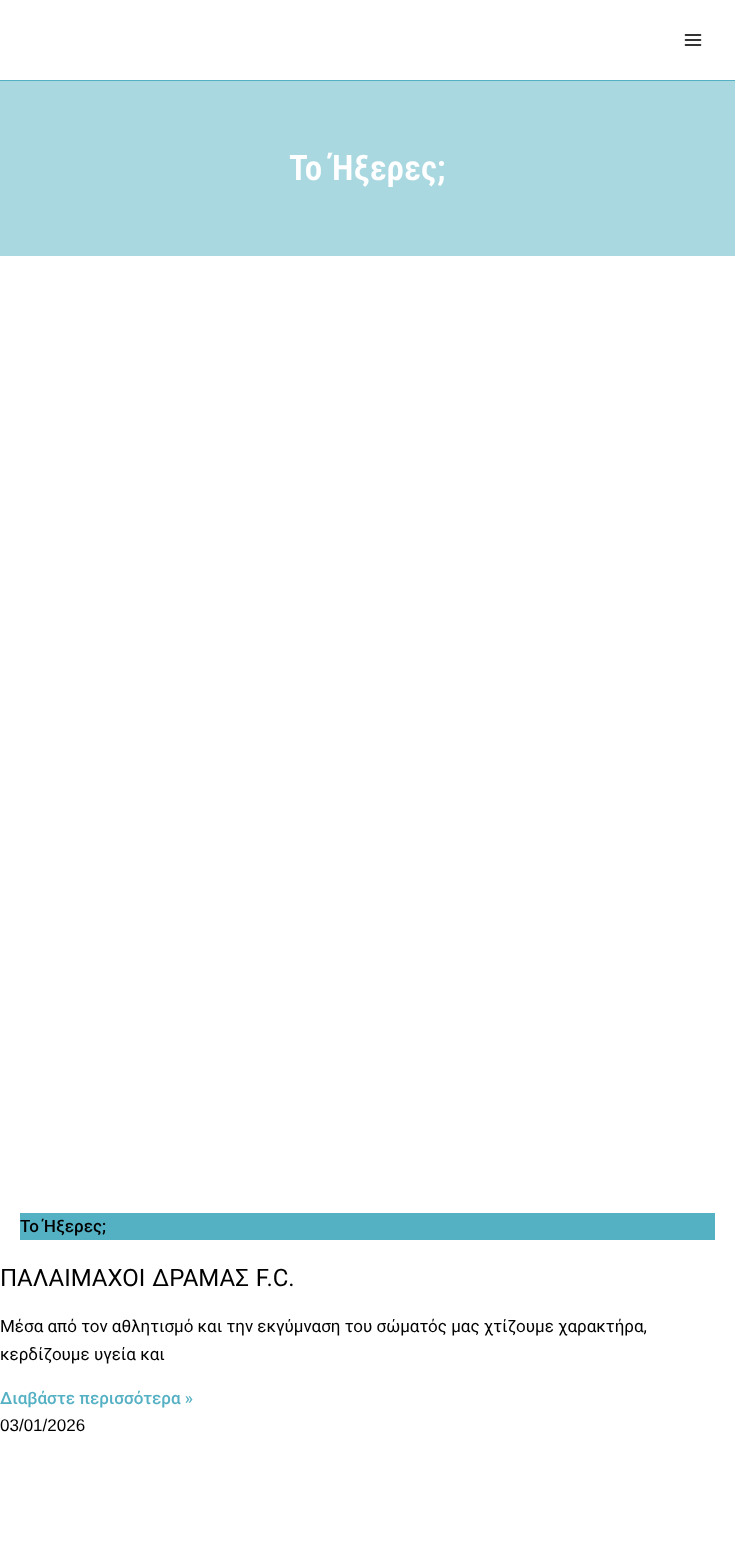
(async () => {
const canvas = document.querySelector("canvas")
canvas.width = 735
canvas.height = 1541
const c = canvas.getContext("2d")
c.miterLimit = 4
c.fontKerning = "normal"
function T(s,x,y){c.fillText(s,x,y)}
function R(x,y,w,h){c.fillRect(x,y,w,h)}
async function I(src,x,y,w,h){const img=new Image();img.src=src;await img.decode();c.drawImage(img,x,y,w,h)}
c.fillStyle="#fff"
R(0,0,735,1541)
c.fillStyle="#54b0c3"
R(0,80,735,1)
await I("1.png",684,34,18,12)
c.fillStyle="#aad8e1"
R(0,81,735,175)
c.font="600 35px Roboto Condensed"
c.fillStyle="#fff"
T("Το Ήξερες;",289,180)
c.fillStyle="#54b0c3"
R(20,1213,695,27)
c.font="500 17px Roboto"
c.fillStyle="#000"
T("Το Ήξερες;",20,1232)
c.wordSpacing="1px"
c.font="24px Roboto"
T("ΠΑΛΑΙΜΑΧΟΙ ΔΡΑΜΑΣ F.C.",0,1286)
c.wordSpacing="0px"
c.font="17px Roboto"
T("Μέσα από τον αθλητισμό και την εκγύμναση του σώματός μας χτίζουμε χαρακτήρα,",0,1332)
T("κερδίζουμε υγεία και",0,1360)
c.font="500 17px Roboto"
c.fillStyle="#54b0c3"
T("Διαβάστε περισσότερα »",0,1404)
c.font="17px Liberation Sans"
c.fillStyle="#000"
T("03/01/2026",0,1431)
})()
